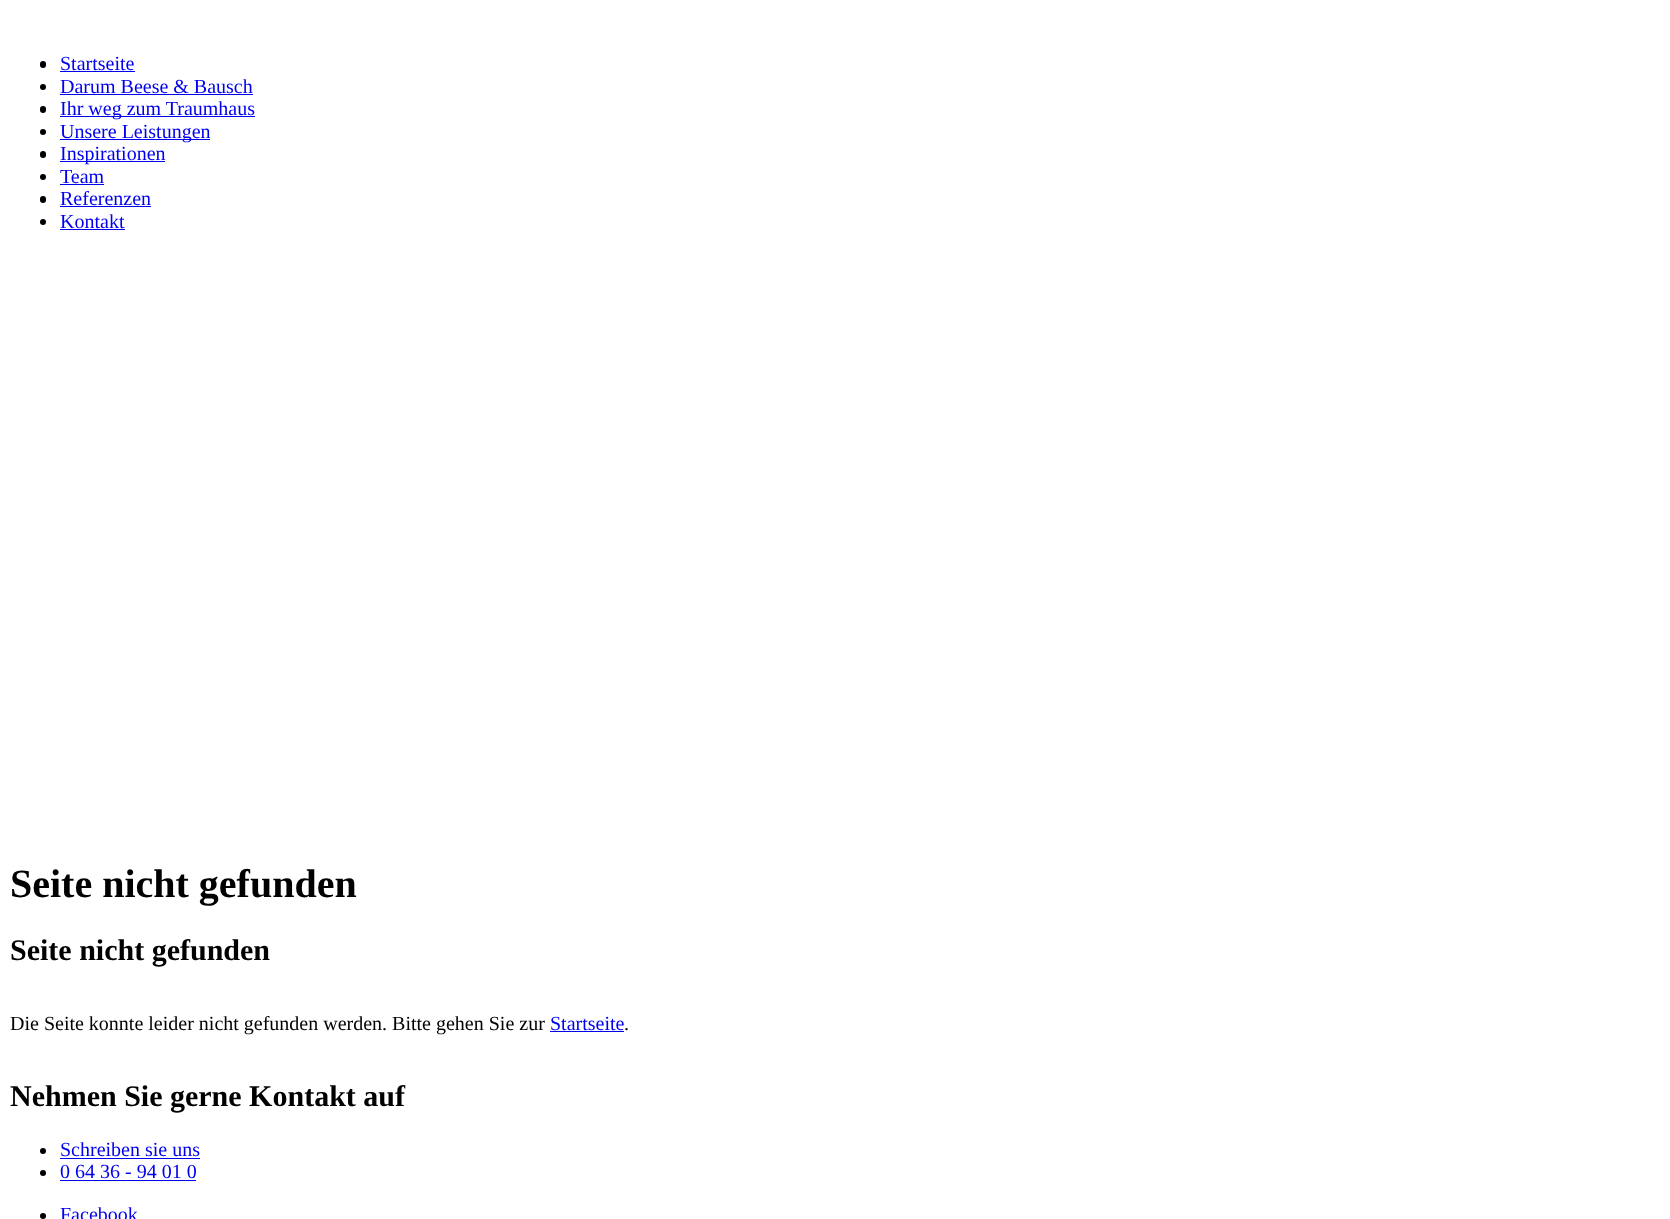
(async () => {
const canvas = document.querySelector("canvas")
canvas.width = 1670
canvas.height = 1219
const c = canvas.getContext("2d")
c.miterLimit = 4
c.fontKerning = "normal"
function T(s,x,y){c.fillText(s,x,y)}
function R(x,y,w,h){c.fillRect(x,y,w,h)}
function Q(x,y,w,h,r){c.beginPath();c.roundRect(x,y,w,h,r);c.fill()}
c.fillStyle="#fff"
R(0,0,1670,1219)
c.fillStyle="#000"
Q(40,61,6,7,3)
c.font="20px Liberation Serif"
c.fillStyle="#00e"
T("Startseite",60,70)
R(60,71,75,1)
c.fillStyle="#000"
c.beginPath()
c.arc(43,87,3,0,7)
c.fill()
c.fillStyle="#00e"
T("Darum Beese & Bausch",60,93)
R(60,94,193,1)
c.fillStyle="#000"
Q(40,106,6,7,3)
c.fillStyle="#00e"
R(60,116,195,1)
T("Ihr weg zum Traumhaus",60,115)
c.fillStyle="#000"
c.beginPath()
c.arc(43,132,3,0,7)
c.fill()
c.fillStyle="#00e"
R(60,139,150,1)
T("Unsere Leistungen",60,138)
c.fillStyle="#000"
Q(40,151,6,7,3)
c.fillStyle="#00e"
R(60,161,105,1)
T("Inspirationen",60,160)
c.fillStyle="#000"
c.beginPath()
c.arc(43,177,3,0,7)
c.fill()
c.fillStyle="#00e"
T("Team",60,183)
R(60,184,44,1)
c.fillStyle="#000"
Q(40,196,6,7,3)
c.fillStyle="#00e"
T("Referenzen",60,205)
R(60,206,91,1)
c.fillStyle="#000"
c.beginPath()
c.arc(43,222,3,0,7)
c.fill()
c.fillStyle="#00e"
T("Kontakt",60,228)
R(60,229,65,1)
c.font="bold 40px Liberation Serif"
c.fillStyle="#000"
T("Seite nicht gefunden",10,897)
c.font="bold 30px Liberation Serif"
T("Seite nicht gefunden",10,960)
c.font="20px Liberation Serif"
T("Die Seite konnte leider nicht gefunden werden. Bitte gehen Sie zur",10,1030)
c.fillStyle="#00e"
T("Startseite",550,1030)
R(550,1031,74,1)
c.fillStyle="#000"
T(".",624,1030)
c.font="bold 30px Liberation Serif"
T("Nehmen Sie gerne Kontakt auf",10,1106)
c.beginPath()
c.arc(43,1151,3,0,7)
c.fill()
c.font="20px Liberation Serif"
c.fillStyle="#00e"
T("Schreiben sie uns",60,1156)
R(60,1158,140,1)
c.fillStyle="#000"
c.beginPath()
c.arc(43,1173,3,0,7)
c.fill()
c.fillStyle="#00e"
T("0 64 36 - 94 01 0",60,1178)
R(60,1180,136,1)
c.fillStyle="#000"
c.beginPath()
c.arc(43,1216,3,0,7)
c.fill()
c.fillStyle="#00e"
T("Facebook",60,1221)
})()
